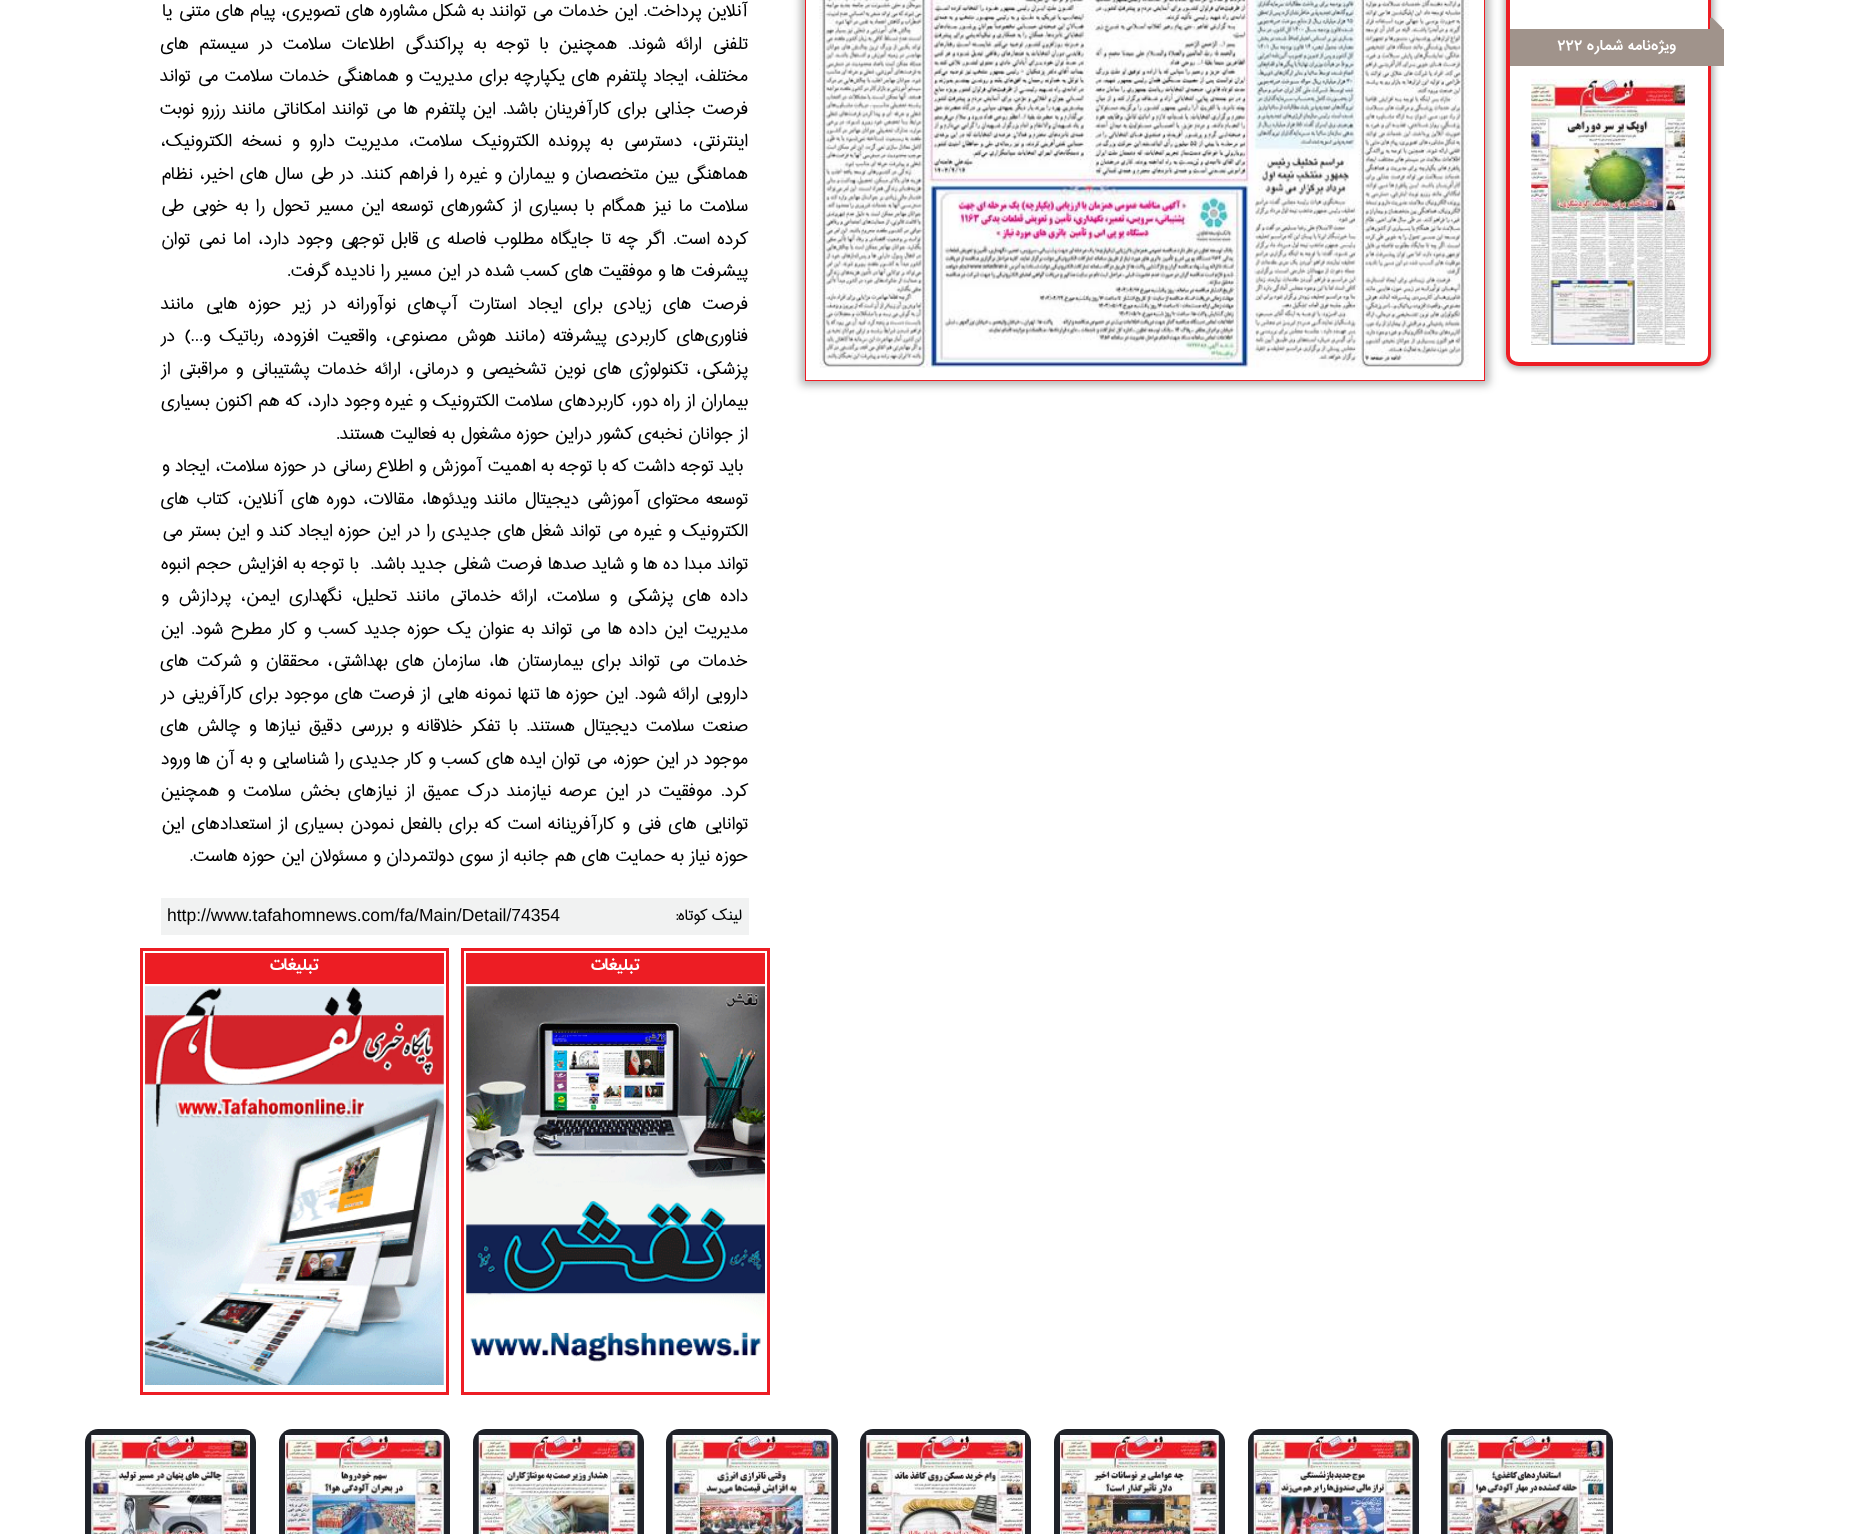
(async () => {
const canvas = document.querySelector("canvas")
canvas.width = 1851
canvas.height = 1534
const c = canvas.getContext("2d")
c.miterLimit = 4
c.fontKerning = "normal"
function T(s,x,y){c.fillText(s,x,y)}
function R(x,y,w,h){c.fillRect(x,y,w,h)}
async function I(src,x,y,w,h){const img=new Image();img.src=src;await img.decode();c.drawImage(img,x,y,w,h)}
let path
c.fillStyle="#fff"
R(0,0,1851,1534)
c.fillStyle="#0000004d"
c.filter="blur(3px)"
c.beginPath()
c.roundRect(1504,-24,210,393,15)
c.fill()
c.filter="none"
c.fillStyle="#fff"
path = new Path2D("M1506-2h205v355c0 7-6 13-13 13h-179c-7 0-13-6-13-13z")
c.fill(path)
c.fillStyle="#ed1d24"
path = new Path2D("M1506-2h205v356c0 7-5 12-12 12h-180c-7 0-13-5-13-12zm4 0h198v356c0 5-4 8-9 8h-180c-5 0-9-3-9-8z")
c.fill(path,"evenodd")
await I("1.png",1710,17,13,12)
c.fillStyle="#a0938b"
R(1510,29,214,37)
c.direction="rtl"
c.font="bold 17.5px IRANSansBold"
c.fillStyle="#fff"
T("ویژه‌نامه شماره",1676,50)
c.direction="ltr"
T("222",1557,50)
await I("2.png",1531,78,154,267)
c.save()
path = new Path2D("M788 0h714v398h-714zm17-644h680v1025h-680z")
c.clip(path,"evenodd")
c.fillStyle="#0000004d"
c.filter="blur(4px)"
c.beginPath()
c.rect(801,-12,688,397)
c.fill()
c.filter="none"
c.restore()
c.strokeStyle="#ed1d24"
c.strokeRect(805.5,-.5,679,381)
await I("3.png",819,0,650,368)
c.direction="rtl"
c.font="22.5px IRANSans"
c.fillStyle="#000"
T("آنلاین پرداخت. این خدمات می توانند به شکل مشاوره های تصویری، پیام های متنی یا",748,16)
c.wordSpacing="4.6px"
T("تلفنی ارائه شوند. همچنین با توجه به پراکندگی اطلاعات سلامت در سیستم های",748,49)
c.wordSpacing="0.75px"
T("مختلف، ایجاد پلتفرم های یکپارچه برای مدیریت و هماهنگی خدمات سلامت می تواند",748,81)
c.wordSpacing="1.25px"
T("فرصت جذابی برای کارآفرینان باشد. این پلتفرم ها می توانند امکاناتی مانند رزرو نوبت",748,114)
c.wordSpacing="4.5px"
T("اینترنتی، دسترسی به پرونده الکترونیک سلامت، مدیریت دارو و نسخه الکترونیک،",748,146)
c.wordSpacing="0.8px"
T("هماهنگی بین متخصصان و بیماران و غیره را فراهم کنند. در طی سال های اخیر، نظام",748,179)
c.wordSpacing="2px"
T("سلامت ما نیز همگام با بسیاری از کشورهای توسعه این مسیر تحول را به خوبی طی",748,211)
T("کرده است. اگر چه تا جایگاه مطلوب فاصله ی قابل توجهی وجود دارد، اما نمی توان",748,244)
c.wordSpacing="0px"
T("پیشرفت ها و موفقیت های کسب شده در این مسیر را نادیده گرفت.",748,276)
c.wordSpacing="5.6px"
T("فرصت های زیادی برای ایجاد استارت آپ‌های نوآورانه در زیر حوزه هایی مانند",748,309)
c.wordSpacing="3.4px"
T("فناوری‌های کاربردی پیشرفته (مانند هوش مصنوعی، واقعیت افزوده، رباتیک و...) در",748,341)
c.wordSpacing="2px"
T("پزشکی، تکنولوژی های نوین تشخیصی و درمانی، ارائه خدمات پشتیبانی و مراقبتی از",748,374)
c.wordSpacing="0.25px"
T("بیماران از راه دور، کاربردهای سلامت الکترونیک و غیره وجود دارد، که هم اکنون بسیاری",748,406)
c.wordSpacing="0px"
T("از جوانان نخبه‌ی کشور دراین حوزه مشغول به فعالیت هستند.",748,439)
T("باید توجه داشت که با توجه به اهمیت آموزش و اطلاع رسانی در حوزه سلامت، ایجاد و",743,471)
c.wordSpacing="1.9px"
T("توسعه محتوای آموزشی دیجیتال مانند ویدئوها، مقالات، دوره های آنلاین، کتاب های",748,504)
c.wordSpacing="0.5px"
T("الکترونیک و غیره می تواند شغل های جدیدی را در این حوزه ایجاد کند و این بستر می",748,536)
c.wordSpacing="0.1px"
T("تواند مبدا ده ها و شاید صدها فرصت شغلی جدید باشد.  با توجه به افزایش حجم انبوه",748,569)
c.wordSpacing="3.9px"
T("داده های پزشکی و سلامت، ارائه خدماتی مانند تحلیل، نگهداری ایمن، پردازش و",748,601)
c.wordSpacing="1.5px"
T("مدیریت این داده ها می تواند به عنوان یک حوزه جدید کسب و کار مطرح شود. این",748,634)
c.wordSpacing="2.75px"
T("خدمات می تواند برای بیمارستان ها، سازمان های بهداشتی، محققان و شرکت های",748,666)
c.wordSpacing="0.5px"
T("دارویی ارائه شود. این حوزه ها تنها نمونه هایی از فرصت های موجود برای کارآفرینی در",748,699)
c.wordSpacing="2.75px"
T("صنعت سلامت دیجیتال هستند. با تفکر خلاقانه و بررسی دقیق نیازها و چالش های",748,731)
c.wordSpacing="0px"
T("موجود در این حوزه، می توان ایده های کسب و کار جدیدی را شناسایی و به آن ها ورود",748,764)
c.wordSpacing="2.6px"
T("کرد. موفقیت در این عرصه نیازمند درک عمیق از نیازهای بخش سلامت و همچنین",748,796)
c.wordSpacing="1.5px"
T("توانایی های فنی و کارآفرینانه است که برای بالفعل نمودن بسیاری از استعدادهای این",748,829)
c.wordSpacing="0px"
T("حوزه نیاز به حمایت های هم جانبه از سوی دولتمردان و مسئولان این حوزه هاست.",748,861)
c.fillStyle="#f1f2f2"
R(161,898,588,37)
c.font="20px IRANSans"
c.fillStyle="#000"
T("لینک کوتاه:",742,920)
c.direction="ltr"
c.font="17.5px Liberation Sans"
T("http://www.tafahomnews.com/fa/Main/Detail/74354",167,921)
c.lineWidth=3
c.strokeRect(462.5,949.5,306,444)
c.fillStyle="#ed1d24"
R(466,953,299,31)
c.direction="rtl"
c.font="bold 20px IRANSansBold"
c.fillStyle="#fff"
T("تبلیغات",640,970)
await I("4.png",466,986,299,376)
c.strokeRect(141.5,949.5,306,444)
c.fillStyle="#ed1d24"
R(145,953,299,31)
c.fillStyle="#fff"
T("تبلیغات",319,970)
await I("5.png",145,986,299,399)
c.fillStyle="#1f2229"
path = new Path2D("M1454 1429h146c7 0 13 6 13 13v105h-172v-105c0-7 6-13 13-13z")
c.fill(path)
await I("6.png",1447,1435,160,99)
path = new Path2D("M1261 1429h145c7 0 13 6 13 13v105h-171v-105c0-7 6-13 13-13z")
c.fill(path)
await I("7.png",1253,1435,160,99)
path = new Path2D("M1067 1429h145c7 0 13 6 13 13v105h-171v-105c0-7 6-13 13-13z")
c.fill(path)
await I("8.png",1060,1435,159,99)
path = new Path2D("M873 1429h145c7 0 13 6 13 13v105h-171v-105c0-7 6-13 13-13z")
c.fill(path)
await I("9.png",866,1435,159,99)
path = new Path2D("M679 1429h146c7 0 13 6 13 13v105h-172v-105c0-7 6-13 13-13z")
c.fill(path)
await I("10.png",672,1435,160,99)
path = new Path2D("M486 1429h145c7 0 13 6 13 13v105h-171v-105c0-7 6-13 13-13z")
c.fill(path)
await I("11.png",478,1435,160,99)
path = new Path2D("M292 1429h145c7 0 13 6 13 13v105h-171v-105c0-7 6-13 13-13z")
c.fill(path)
await I("12.png",285,1435,159,99)
path = new Path2D("M98 1429h145c7 0 13 6 13 13v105h-171v-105c0-7 6-13 13-13z")
c.fill(path)
await I("13.png",91,1435,159,99)
})()
